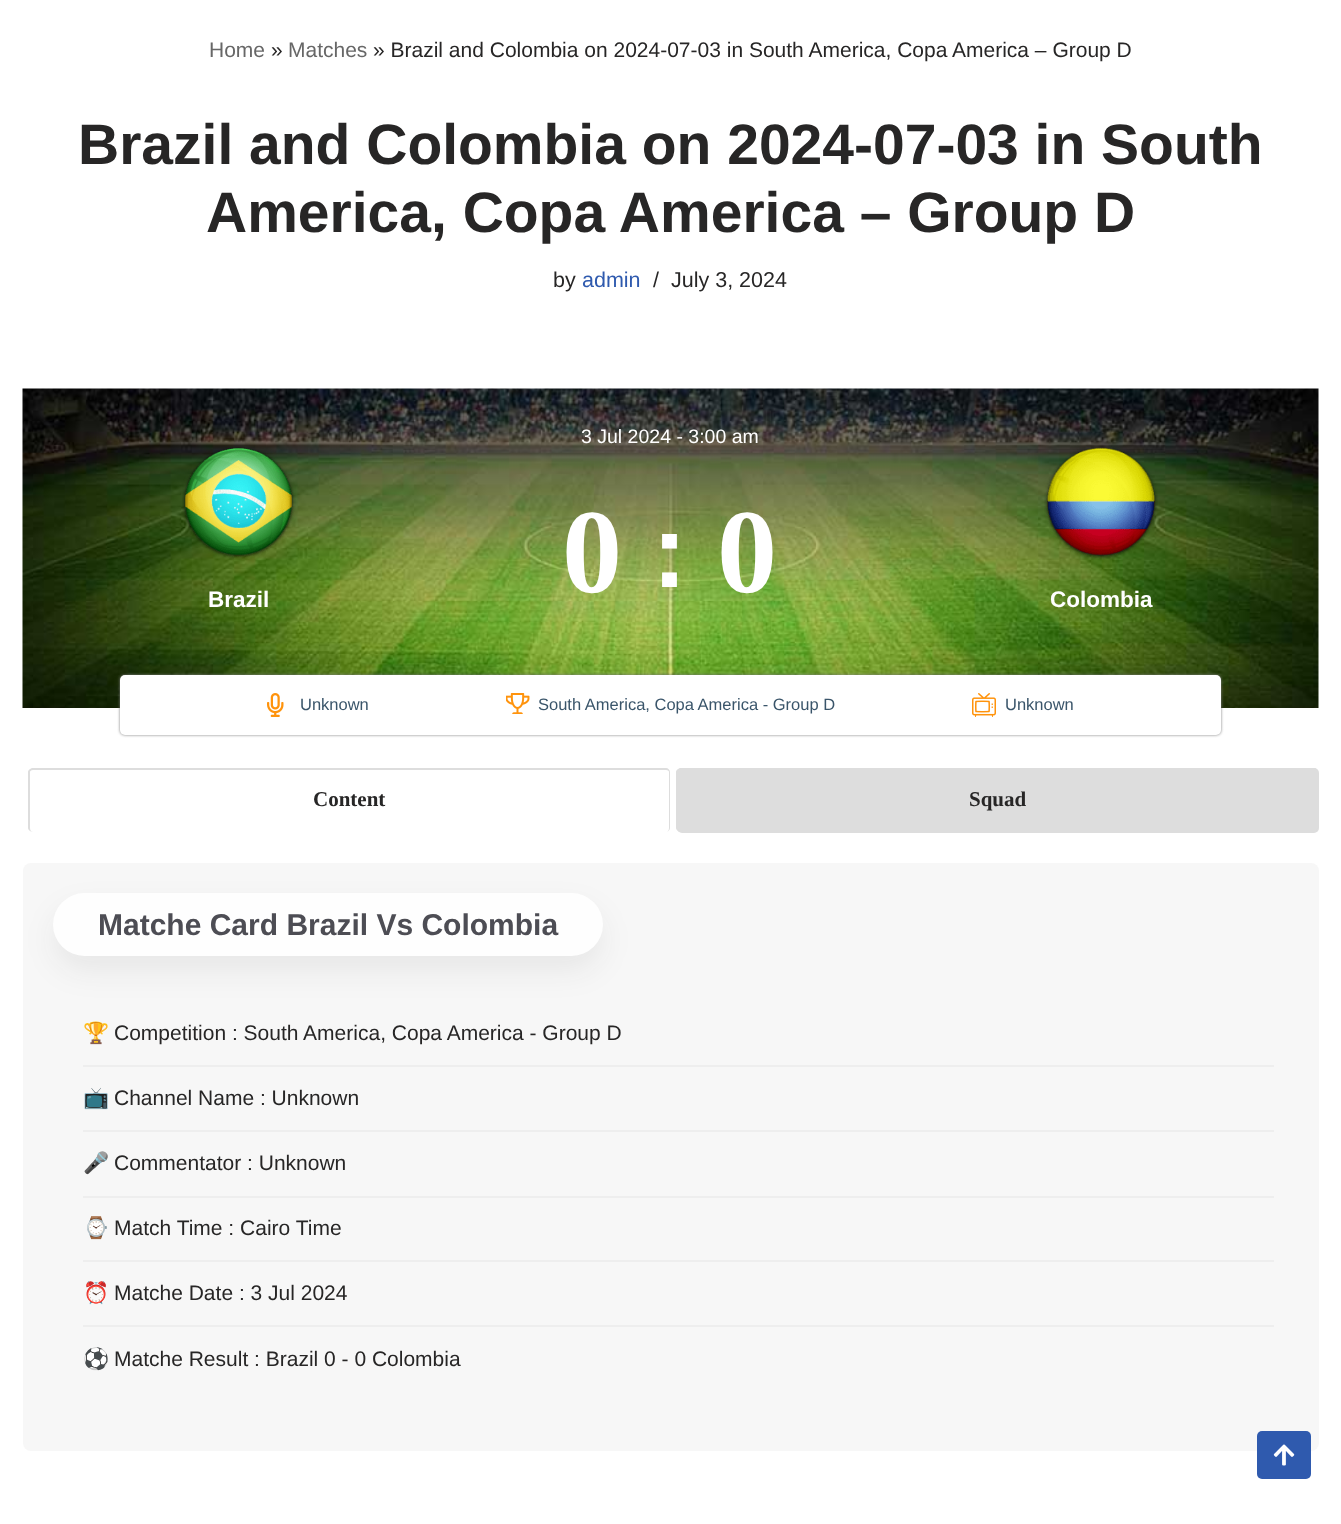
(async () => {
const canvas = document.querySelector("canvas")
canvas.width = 1341
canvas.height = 1524
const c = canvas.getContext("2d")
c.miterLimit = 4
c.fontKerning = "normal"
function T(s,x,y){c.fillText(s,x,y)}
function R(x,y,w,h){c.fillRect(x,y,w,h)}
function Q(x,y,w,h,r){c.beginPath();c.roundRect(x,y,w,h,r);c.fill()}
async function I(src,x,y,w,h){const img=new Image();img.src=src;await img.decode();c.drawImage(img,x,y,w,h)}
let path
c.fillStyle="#fff"
R(0,0,1341,1524)
c.font="21px Liberation Sans"
c.fillStyle="#676767"
T("Home",209,57)
c.fillStyle="#272626"
T("»",271,57)
c.fillStyle="#676767"
T("Matches",288,57)
c.fillStyle="#272626"
T("» Brazil and Colombia on 2024-07-03 in South America, Copa America – Group D",373,57)
c.font="bold 57px Liberation Sans"
T("Brazil and Colombia on 2024-07-03 in South",78,164)
T("America, Copa America – Group D",206,232)
c.font="21.5px Liberation Sans"
T("by",553,287)
c.fillStyle="#2f5aae"
T("admin",582,287)
c.fillStyle="#272626"
T("/",653,287)
T("July 3, 2024",671,287)
await I("1.png",22,388,1297,320)
c.font="19.5px Liberation Sans"
c.fillStyle="#fff"
T("3 Jul 2024 - 3:00 am",581,443)
c.font="bold 120px Liberation Serif"
T("0",562,592)
c.font="bold 105px Liberation Sans"
T(":",652,587)
c.font="bold 120px Liberation Serif"
T("0",717,592)
await I("2.png",182,447,114,113)
c.font="bold 22.5px Liberation Sans"
T("Brazil",208,607)
await I("3.png",1044,446,114,114)
T("Colombia",1050,607)
c.fillStyle="#808080"
c.filter="blur(1.5px)"
c.beginPath()
c.roundRect(120,675,1101,60,5)
c.fill()
c.filter="none"
c.fillStyle="#fff"
Q(120,675,1101,60,5)
await I("4.png",267,693,17,24)
c.font="16.5px Liberation Sans"
c.fillStyle="#3a556a"
T("Unknown",300,710)
await I("5.png",506,693,24,21)
T("South America, Copa America - Group D",538,710)
await I("6.png",972,693,24,24)
T("Unknown",1005,710)
c.fillStyle="#ddd"
path = new Path2D("M33 768h633c2 0 4 2 4 4v56c0 2-2 4-4 4h-633c-2 0-5-2-5-4v-56c0-2 3-4 5-4zm0 2h633c2 0 3 1 3 2v56c0 2-1 4-3 4h-633c-2 0-3-2-3-4v-56c0-1 1-2 3-2z")
c.fill(path,"evenodd")
c.font="bold 21px Liberation Serif"
c.fillStyle="#272626"
T("Content",313,806)
c.fillStyle="#ddd"
Q(677,768,642,65,5)
path = new Path2D("M681 768h633c2 0 4 2 4 4v56c0 2-2 4-4 4h-633c-2 0-5-2-5-4v-56c0-2 3-4 5-4zm0 2h633c2 0 3 1 3 2v56c0 2-1 4-3 4h-633c-2 0-3-2-3-4v-56c0-1 1-2 3-2z")
c.fill(path,"evenodd")
c.fillStyle="#272626"
T("Squad",969,806)
c.fillStyle="#f7f7f7"
Q(23,863,1296,588,8)
c.fillStyle="#1e1e1e12"
c.filter="blur(15px)"
c.beginPath()
c.roundRect(53,908,550,63,31.5)
c.fill()
c.filter="none"
c.fillStyle="#fefefe"
Q(53,893,550,63,31.5)
c.font="bold 30px Liberation Sans"
c.fillStyle="#4d4d54"
T("Matche Card Brazil Vs Colombia",98,935)
c.fillStyle="#eee"
R(83,1065,1191,2)
c.font="21px Noto Color Emoji"
c.fillStyle="#272626"
T("🏆",83,1040)
c.font="21px Liberation Sans"
T("Competition : South America, Copa America - Group D",114,1040)
c.fillStyle="#eee"
R(83,1130,1191,2)
c.font="21px Noto Color Emoji"
c.fillStyle="#272626"
T("📺",83,1105)
c.font="21px Liberation Sans"
T("Channel Name : Unknown",114,1105)
c.fillStyle="#eee"
R(83,1196,1191,2)
c.font="21px Noto Color Emoji"
c.fillStyle="#272626"
T("🎤",83,1170)
c.font="21px Liberation Sans"
T("Commentator : Unknown",114,1170)
c.fillStyle="#eee"
R(83,1260,1191,2)
c.font="21px Noto Color Emoji"
c.fillStyle="#272626"
T("⌚",83,1235)
c.font="21px Liberation Sans"
T("Match Time : Cairo Time",114,1235)
c.fillStyle="#eee"
R(83,1325,1191,2)
c.font="21px Noto Color Emoji"
c.fillStyle="#272626"
T("⏰",83,1300)
c.font="21px Liberation Sans"
T("Matche Date : 3 Jul 2024",114,1300)
c.font="21px Noto Color Emoji"
T("⚽",83,1366)
c.font="21px Liberation Sans"
T("Matche Result : Brazil 0 - 0 Colombia",114,1366)
c.fillStyle="#2f5aae"
Q(1257,1431,54,48,5)
await I("7.png",1273,1444,22,22)
})()
